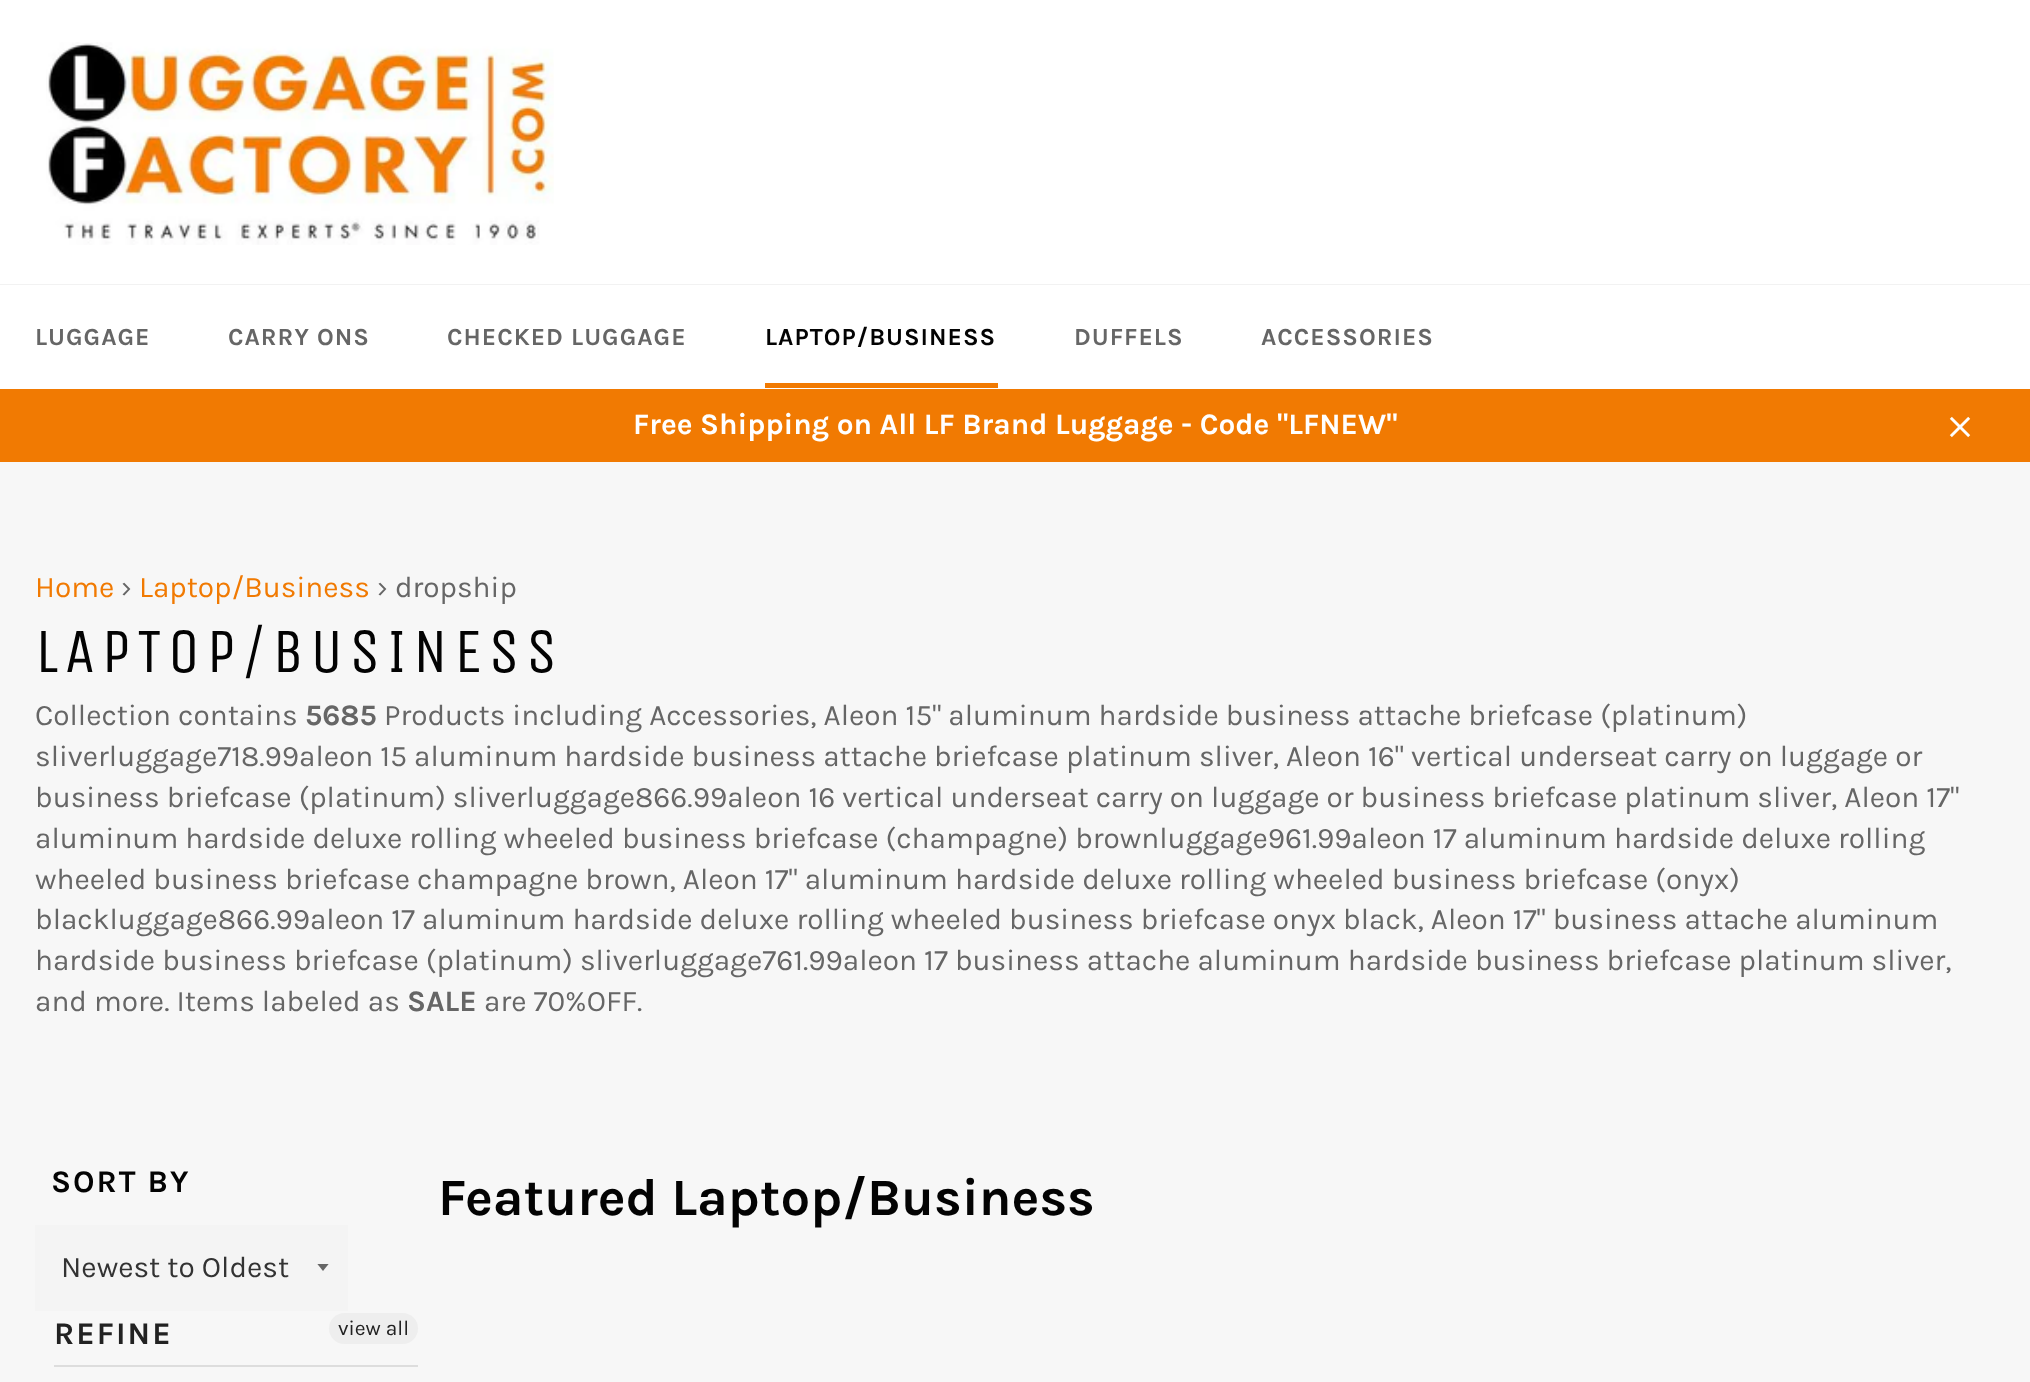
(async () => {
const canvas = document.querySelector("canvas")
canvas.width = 2030
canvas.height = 1382
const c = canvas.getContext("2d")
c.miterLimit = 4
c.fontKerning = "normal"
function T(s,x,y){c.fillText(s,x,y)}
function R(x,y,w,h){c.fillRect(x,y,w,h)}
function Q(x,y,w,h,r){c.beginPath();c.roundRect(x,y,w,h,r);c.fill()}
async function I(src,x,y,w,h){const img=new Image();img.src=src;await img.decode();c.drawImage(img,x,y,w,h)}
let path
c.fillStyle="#f7f7f7"
R(0,0,2030,1382)
c.fillStyle="#fff"
R(0,0,2030,284)
await I("1.png",46,42,508,203)
c.fillStyle="#f2f2f2"
R(0,284,2030,1)
c.fillStyle="#fff"
R(0,285,2030,104)
c.letterSpacing="1px"
c.font="bold 24.5px Karla"
c.fillStyle="#666"
T("LUGGAGE",35,345)
T("CARRY ONS",228,345)
T("CHECKED LUGGAGE",447,345)
c.fillStyle="#030303"
T("LAPTOP/BUSINESS",765,345)
c.fillStyle="#f17a02"
R(765,383,233,5)
c.fillStyle="#666"
T("DUFFELS",1074,345)
T("ACCESSORIES",1261,345)
c.fillStyle="#f17a02"
R(0,389,2030,73)
c.letterSpacing="0px"
c.font="bold 29.75px Karla"
c.fillStyle="#fff"
T("Free Shipping on All LF Brand Luggage - Code \"LFNEW\"",633,434)
await I("2.png",1949,416,22,22)
c.font="29.75px Karla"
c.fillStyle="#f17a02"
T("Home",35,597)
c.fillStyle="#666"
T("›",121,597)
c.fillStyle="#f17a02"
T("Laptop/Business",139,597)
c.fillStyle="#666"
T("› dropship",377,597)
c.letterSpacing="6.25px"
c.font="63px Unica One"
c.fillStyle="#030303"
T("LAPTOP/BUSINESS",35,672)
c.letterSpacing="0px"
c.font="29.75px Karla"
c.fillStyle="#666"
T("Collection contains",35,725)
c.font="bold 29.75px Karla"
T("5685",305,725)
c.font="29.75px Karla"
T("Products including Accessories, Aleon 15\" aluminum hardside business attache briefcase (platinum)",384,725)
T("sliverluggage718.99aleon 15 aluminum hardside business attache briefcase platinum sliver, Aleon 16\" vertical underseat carry on luggage or",35,766)
T("business briefcase (platinum) sliverluggage866.99aleon 16 vertical underseat carry on luggage or business briefcase platinum sliver, Aleon 17\"",35,807)
T("aluminum hardside deluxe rolling wheeled business briefcase (champagne) brownluggage961.99aleon 17 aluminum hardside deluxe rolling",35,848)
T("wheeled business briefcase champagne brown, Aleon 17\" aluminum hardside deluxe rolling wheeled business briefcase (onyx)",35,889)
T("blackluggage866.99aleon 17 aluminum hardside deluxe rolling wheeled business briefcase onyx black, Aleon 17\" business attache aluminum",35,929)
T("hardside business briefcase (platinum) sliverluggage761.99aleon 17 business attache aluminum hardside business briefcase platinum sliver,",35,970)
T("and more. Items labeled as",35,1011)
c.font="bold 29.75px Karla"
T("SALE",407,1011)
c.font="29.75px Karla"
T("are 70%OFF.",484,1011)
c.letterSpacing="2px"
c.font="bold 31.5px Karla"
c.fillStyle="#030303"
T("SORT BY",51,1192)
c.fillStyle="#f4f4f4"
R(35,1225,313,86)
c.save()
c.beginPath()
c.rect(317,1264,14,8)
c.clip()
c.fillStyle="#666"
path = new Path2D("M317 1263.5l6 7.5l6-7.5z")
c.fill(path)
c.restore()
c.letterSpacing="0px"
c.font="29.75px Karla"
c.fillStyle="#333"
T("Newest to Oldest",61,1277)
c.fillStyle="#ddd"
R(54,1365,364,2)
c.letterSpacing="2px"
c.font="bold 31.5px Karla"
c.fillStyle="#222"
T("REFINE",54,1344)
c.fillStyle="#eee"
Q(329,1313,89,31,15.5)
c.letterSpacing="0px"
c.font="21px Karla"
c.fillStyle="#222"
T("view all",338,1335)
c.font="bold 52.5px Karla"
c.fillStyle="#030303"
T("Featured Laptop/Business",438,1215)
})()
